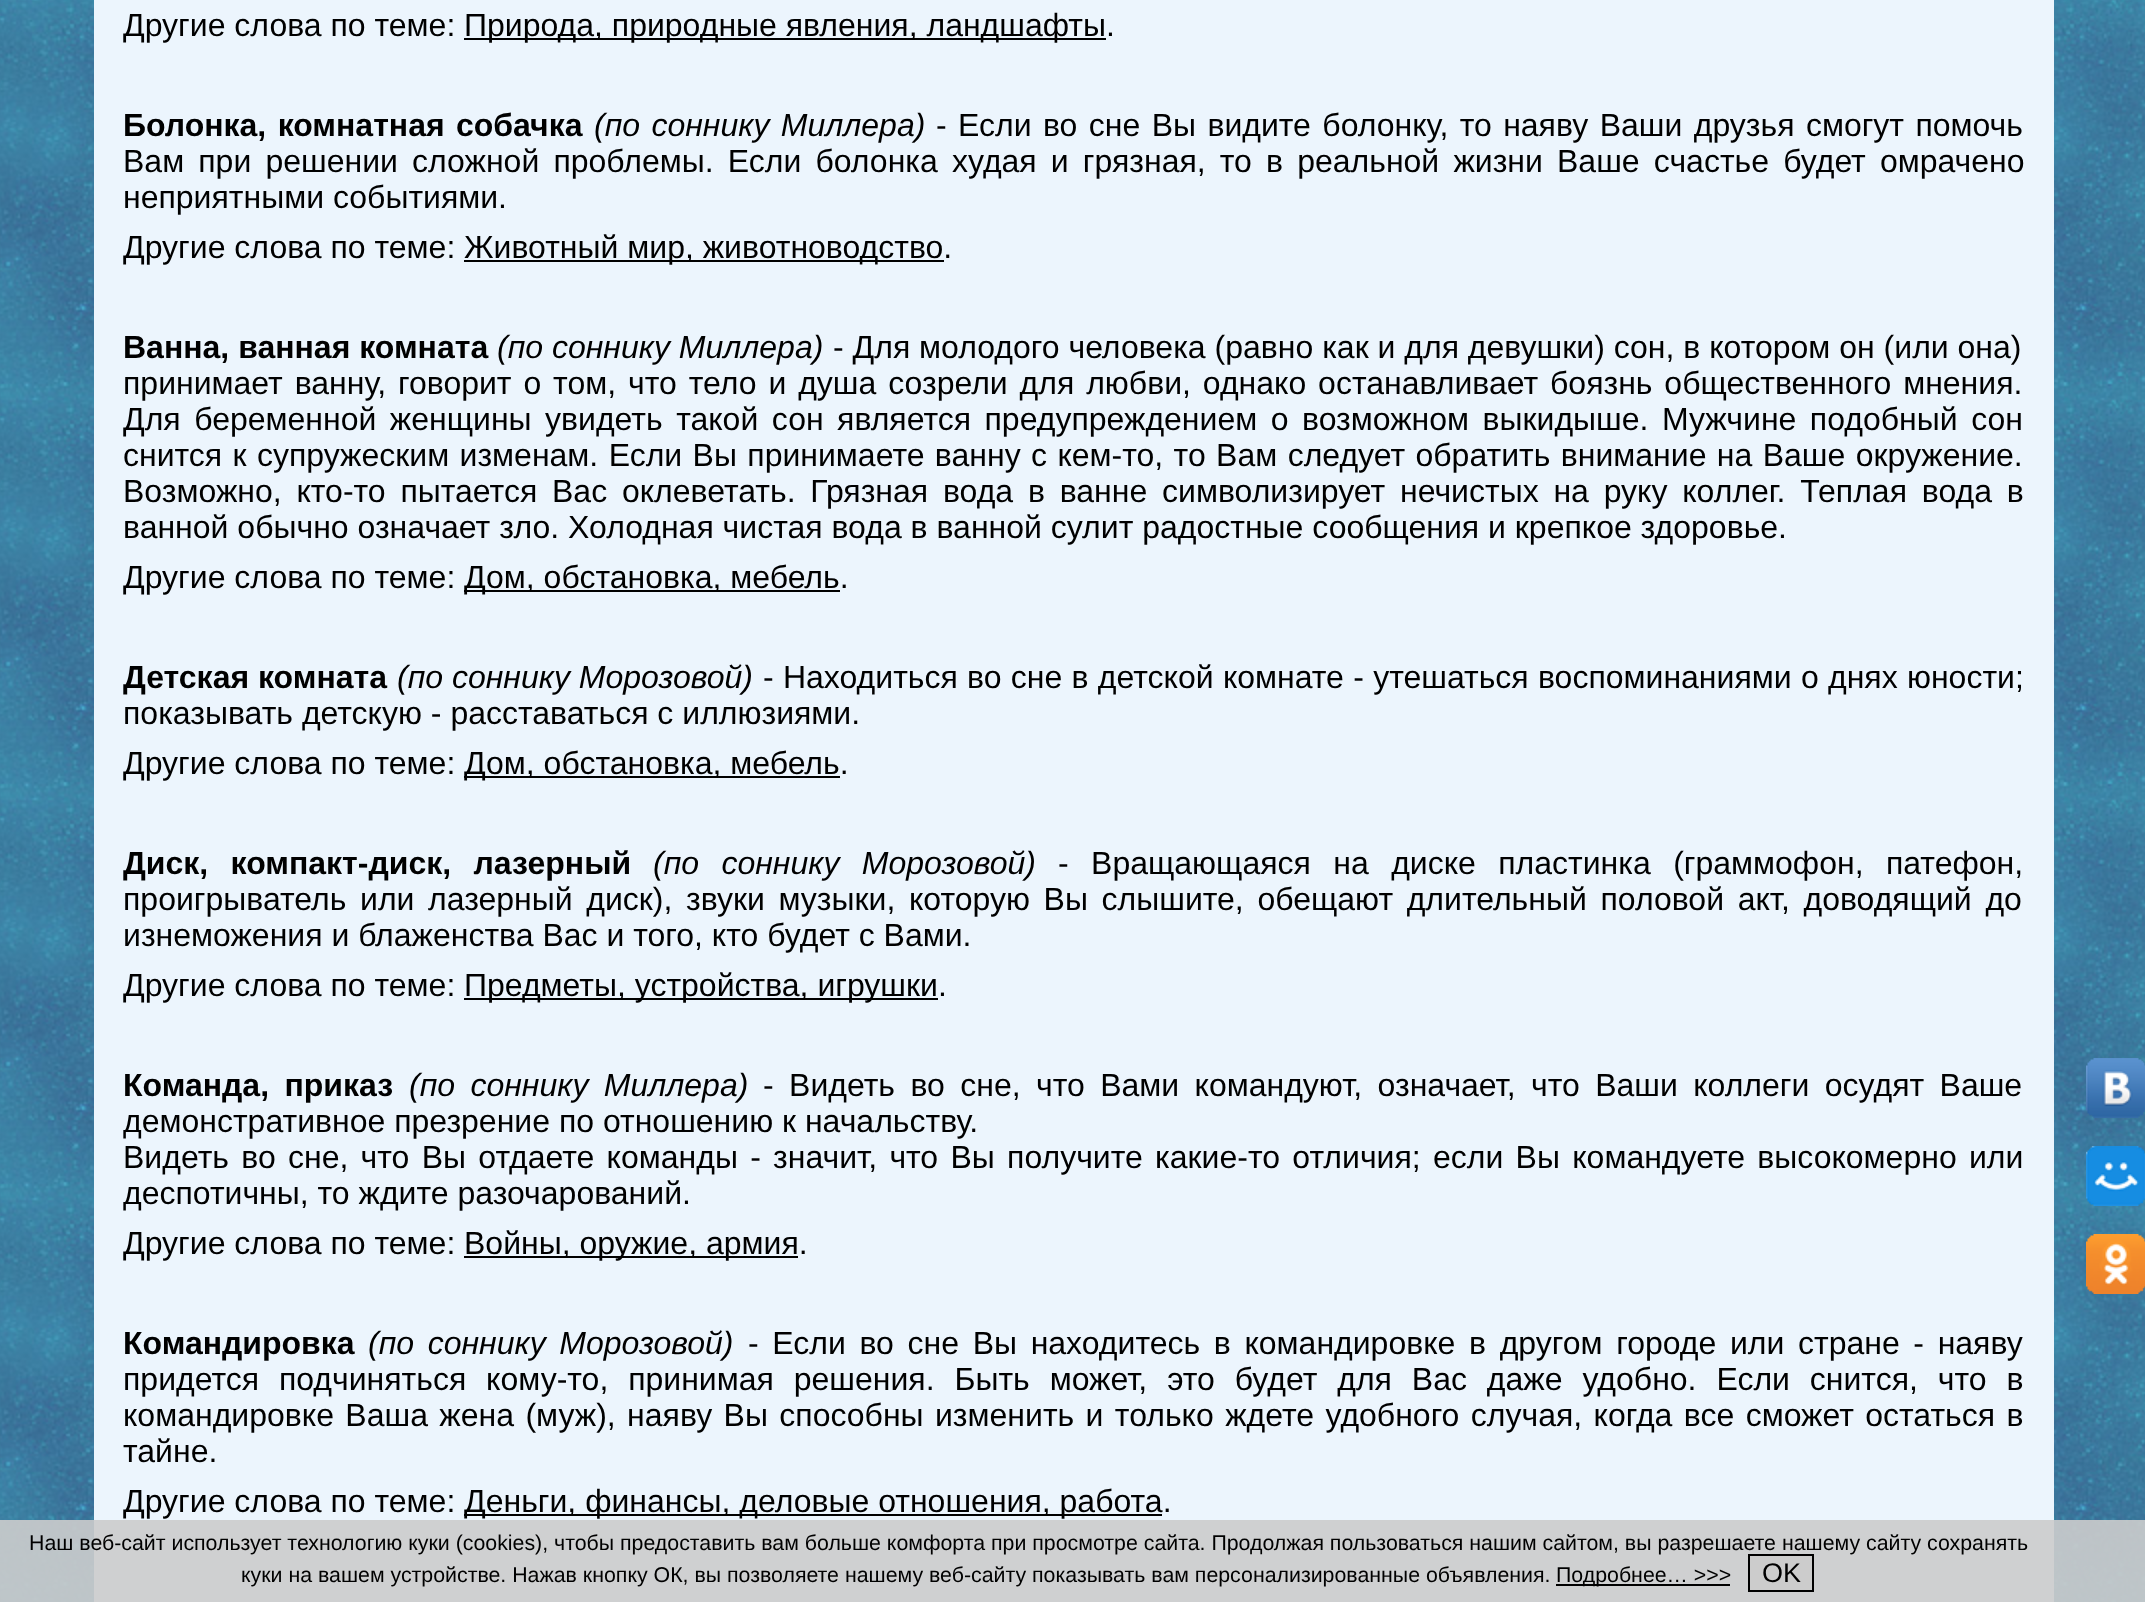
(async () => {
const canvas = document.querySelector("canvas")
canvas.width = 2145
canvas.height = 1602
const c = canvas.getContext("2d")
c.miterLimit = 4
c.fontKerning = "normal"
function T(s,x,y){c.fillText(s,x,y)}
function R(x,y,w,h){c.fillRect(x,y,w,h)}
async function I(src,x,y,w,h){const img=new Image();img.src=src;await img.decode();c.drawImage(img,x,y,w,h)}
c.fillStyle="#fff"
R(0,0,2145,1602)
await I("1.png",0,0,2145,1602)
c.fillStyle="#ecf5fd"
R(94,0,1960,1602)
c.font="32px Liberation Sans"
c.fillStyle="#000"
T("Другие слова по теме:",123,36)
R(464,38,642,2)
T("Природа, природные явления, ландшафты.",464,36)
c.wordSpacing="2.5px"
c.font="bold 32px Liberation Sans"
T("Болонка, комнатная собачка",123,136)
c.font="italic 32px Liberation Sans"
T("(по соннику Миллера)",594,136)
c.font="32px Liberation Sans"
T("- Если во сне Вы видите болонку, то наяву Ваши друзья смогут помочь",936,136)
c.wordSpacing="5.25px"
T("Вам при решении сложной проблемы. Если болонка худая и грязная, то в реальной жизни Ваше счастье будет омрачено",123,172)
c.wordSpacing="0px"
T("неприятными событиями.",123,208)
T("Другие слова по теме:",123,258)
R(464,260,480,2)
T("Животный мир, животноводство.",464,258)
c.font="bold 32px Liberation Sans"
T("Ванна, ванная комната",123,358)
c.font="italic 32px Liberation Sans"
T("(по соннику Миллера)",497,358)
c.font="32px Liberation Sans"
T("- Для молодого человека (равно как и для девушки) сон, в котором он (или она)",833,358)
c.wordSpacing="3px"
T("принимает ванну, говорит о том, что тело и душа созрели для любви, однако останавливает боязнь общественного мнения.",123,394)
c.wordSpacing="4.6px"
T("Для беременной женщины увидеть такой сон является предупреждением о возможном выкидыше. Мужчине подобный сон",123,430)
c.wordSpacing="1.5px"
T("снится к супружеским изменам. Если Вы принимаете ванну с кем-то, то Вам следует обратить внимание на Ваше окружение.",123,466)
c.wordSpacing="5.9px"
T("Возможно, кто-то пытается Вас оклеветать. Грязная вода в ванне символизирует нечистых на руку коллег. Теплая вода в",123,502)
c.wordSpacing="0px"
T("ванной обычно означает зло. Холодная чистая вода в ванной сулит радостные сообщения и крепкое здоровье.",123,538)
T("Другие слова по теме:",123,588)
R(464,590,376,2)
T("Дом, обстановка, мебель.",464,588)
c.font="bold 32px Liberation Sans"
T("Детская комната",123,688)
c.font="italic 32px Liberation Sans"
T("(по соннику Морозовой)",397,688)
c.wordSpacing="0.4px"
c.font="32px Liberation Sans"
T("- Находиться во сне в детской комнате - утешаться воспоминаниями о днях юности;",763,688)
c.wordSpacing="0px"
T("показывать детскую - расставаться с иллюзиями.",123,724)
T("Другие слова по теме:",123,774)
R(464,776,376,2)
T("Дом, обстановка, мебель.",464,774)
c.wordSpacing="13.5px"
c.font="bold 32px Liberation Sans"
T("Диск, компакт-диск, лазерный",123,874)
c.font="italic 32px Liberation Sans"
T("(по соннику Морозовой)",653,874)
c.font="32px Liberation Sans"
T("- Вращающаяся на диске пластинка (граммофон, патефон,",1058,874)
c.wordSpacing="4.75px"
T("проигрыватель или лазерный диск), звуки музыки, которую Вы слышите, обещают длительный половой акт, доводящий до",123,910)
c.wordSpacing="0px"
T("изнеможения и блаженства Вас и того, кто будет с Вами.",123,946)
T("Другие слова по теме:",123,996)
R(464,998,474,2)
T("Предметы, устройства, игрушки.",464,996)
c.wordSpacing="6.5px"
c.font="bold 32px Liberation Sans"
T("Команда, приказ",123,1096)
c.font="italic 32px Liberation Sans"
T("(по соннику Миллера)",409,1096)
c.font="32px Liberation Sans"
T("- Видеть во сне, что Вами командуют, означает, что Ваши коллеги осудят Ваше",763,1096)
c.wordSpacing="0px"
T("демонстративное презрение по отношению к начальству.",123,1132)
c.wordSpacing="3.4px"
T("Видеть во сне, что Вы отдаете команды - значит, что Вы получите какие-то отличия; если Вы командуете высокомерно или",123,1168)
c.wordSpacing="0px"
T("деспотичны, то ждите разочарований.",123,1204)
await I("2.png",2086,1058,59,60)
await I("3.png",2086,1146,59,60)
await I("4.png",2086,1234,59,60)
T("Другие слова по теме:",123,1254)
R(464,1256,334,2)
T("Войны, оружие, армия.",464,1254)
c.font="bold 32px Liberation Sans"
T("Командировка",123,1354)
c.wordSpacing="4.75px"
c.font="italic 32px Liberation Sans"
T("(по соннику Морозовой)",368,1354)
c.font="32px Liberation Sans"
T("- Если во сне Вы находитесь в командировке в другом городе или стране - наяву",748,1354)
c.wordSpacing="11px"
T("придется подчиняться кому-то, принимая решения. Быть может, это будет для Вас даже удобно. Если снится, что в",123,1390)
c.wordSpacing="2.5px"
T("командировке Ваша жена (муж), наяву Вы способны изменить и только ждете удобного случая, когда все сможет остаться в",123,1426)
c.wordSpacing="0px"
T("тайне.",123,1462)
T("Другие слова по теме:",123,1512)
R(464,1514,698,2)
T("Деньги, финансы, деловые отношения, работа.",464,1512)
c.fillStyle="#cccccce6"
R(0,1520,2145,82)
c.font="21.33px Liberation Sans"
c.fillStyle="#000"
T("Наш веб-сайт использует технологию куки (cookies), чтобы предоставить вам больше комфорта при просмотре сайта. Продолжая пользоваться нашим сайтом, вы разрешаете нашему сайту сохранять",29,1550)
T("куки на вашем устройстве. Нажав кнопку ОК, вы позволяете нашему веб-сайту показывать вам персонализированные объявления.",241,1582)
R(1556,1584,174,2)
T("Подробнее… >>>",1556,1582)
c.fillStyle="#ccc"
c.beginPath()
c.rect(1749,1555,64,36)
c.fill()
c.strokeStyle="#000"
c.lineWidth=2
c.stroke()
c.font="27px Liberation Sans"
c.fillStyle="#000"
T("OK",1762,1582)
})()
